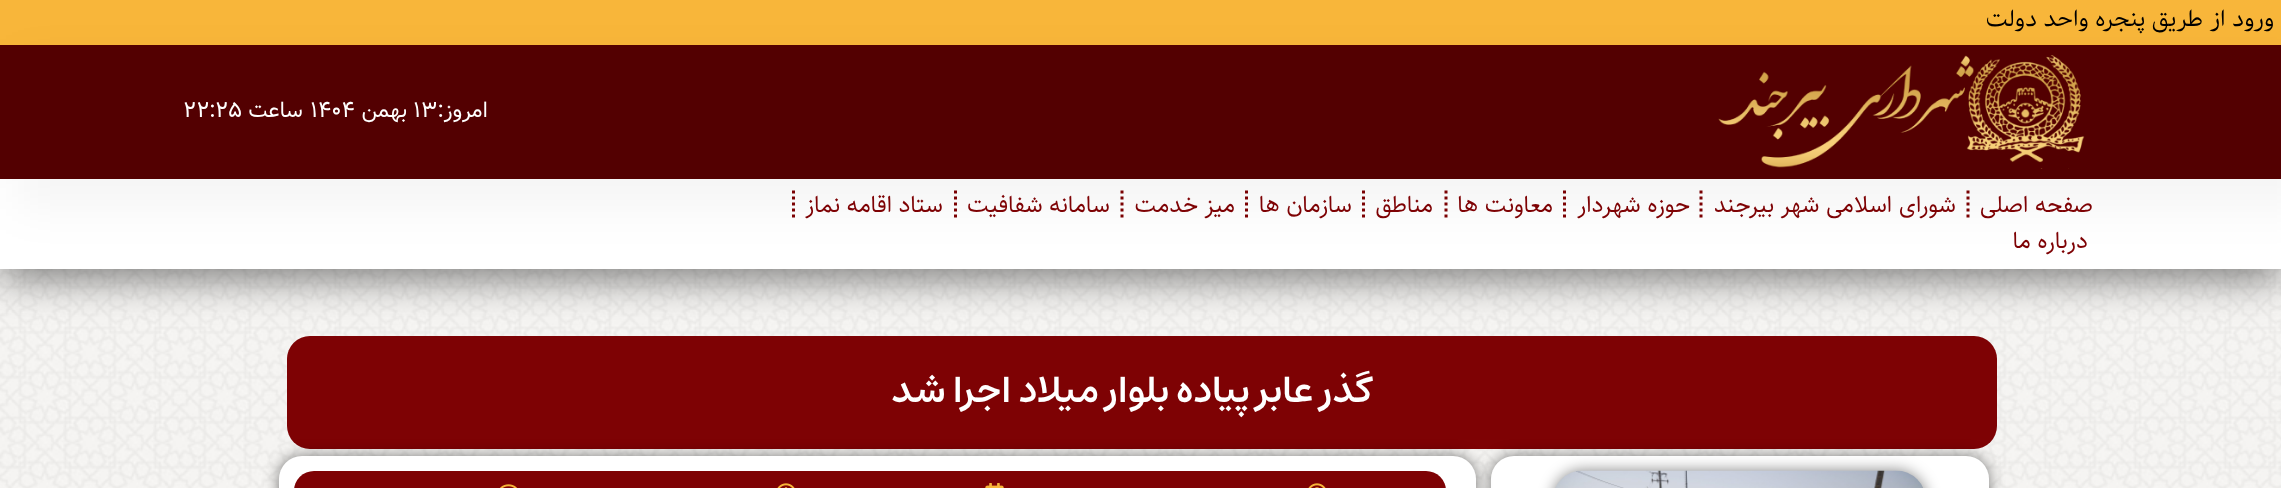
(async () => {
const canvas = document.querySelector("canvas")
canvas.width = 2281
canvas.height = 488
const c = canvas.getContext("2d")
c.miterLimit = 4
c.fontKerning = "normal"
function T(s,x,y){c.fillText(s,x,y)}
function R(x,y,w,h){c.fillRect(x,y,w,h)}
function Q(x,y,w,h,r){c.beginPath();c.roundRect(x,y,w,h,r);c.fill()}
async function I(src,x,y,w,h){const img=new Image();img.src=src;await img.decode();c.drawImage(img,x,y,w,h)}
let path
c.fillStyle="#fff"
R(0,0,2281,488)
await I("1.png",0,269,2281,219)
c.fillStyle="#f8b63a"
R(0,0,2281,45)
c.direction="rtl"
c.font="24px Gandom"
c.fillStyle="#000"
T("ورود از طریق پنجره واحد دولت",2274,26)
c.fillStyle="#7e0204"
Q(287,336,1710,113,23)
c.fillStyle="#00000080"
c.filter="blur(21px)"
c.beginPath()
c.rect(0,188,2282,90)
c.fill()
c.filter="none"
c.fillStyle="#fff"
R(0,179,2281,90)
path = new Path2D("M1968 190.5v30")
c.strokeStyle="#7e0204"
c.lineWidth=3
c.setLineDash([3,3])
c.stroke(path)
path = new Path2D("M1701 190.5v30")
c.stroke(path)
path = new Path2D("M1564.5 190.5v30")
c.stroke(path)
path = new Path2D("M1446 190.5v30")
c.stroke(path)
path = new Path2D("M1363.5 190.5v30")
c.stroke(path)
path = new Path2D("M1246.5 190.5v30")
c.stroke(path)
path = new Path2D("M1122 190.5v30")
c.stroke(path)
path = new Path2D("M955.5 190.5v30")
c.stroke(path)
path = new Path2D("M793.5 190.5v30")
c.stroke(path)
c.fillStyle="#0000000a"
c.filter="blur(22.5px)"
c.beginPath()
c.rect(15,60,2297,149)
c.fill()
c.filter="none"
c.fillStyle="#530001"
R(0,45,2281,134)
await I("2.png",1718,55,367,114)
c.font="22.5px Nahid"
c.fillStyle="#fff"
T("امروز:",488,117)
c.direction="ltr"
T("۱۳",413,117)
c.direction="rtl"
T("بهمن",407,117)
c.direction="ltr"
T("۱۴۰۴",310,117)
c.direction="rtl"
T("ساعت",303,117)
c.direction="ltr"
T("۲۲:۲۵",183,117)
c.direction="rtl"
c.font="24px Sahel"
c.fillStyle="#7e0204"
T("صفحه اصلی",2093,212)
T("شورای اسلامی شهر بیرجند",1956,212)
T("حوزه شهردار",1690,212)
T("معاونت ها",1553,212)
T("مناطق",1433,212)
T("سازمان ها",1352,212)
T("میز خدمت",1235,212)
T("سامانه شفافیت",1110,212)
T("ستاد اقامه نماز",943,212)
T("درباره ما",2088,248)
c.font="600 37.5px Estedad"
c.fillStyle="#fff"
T("گذر عابر پیاده بلوار میلاد اجرا شد",1372,402)
c.fillStyle="#00000080"
c.filter="blur(7.5px)"
c.beginPath()
c.roundRect(1491,456,498,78,23)
c.fill()
c.filter="none"
c.fillStyle="#fff"
Q(1491,456,498,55,23)
c.fillStyle="#00000080"
c.filter="blur(7.5px)"
c.beginPath()
c.roundRect(1553,471,373,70,30)
c.fill()
c.filter="none"
await I("3.png",1555,470,368,18)
c.filter="blur(7.5px)"
c.beginPath()
c.roundRect(279,456,1197,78,23)
c.fill()
c.filter="none"
c.fillStyle="#fff"
Q(279,456,1197,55,23)
c.fillStyle="#7e0204"
Q(294,471,1152,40,22.5)
await I("4.png",1308,483,18,5)
await I("5.png",985,483,19,5)
await I("6.png",777,483,18,5)
await I("7.png",500,484,17,4)
})()
